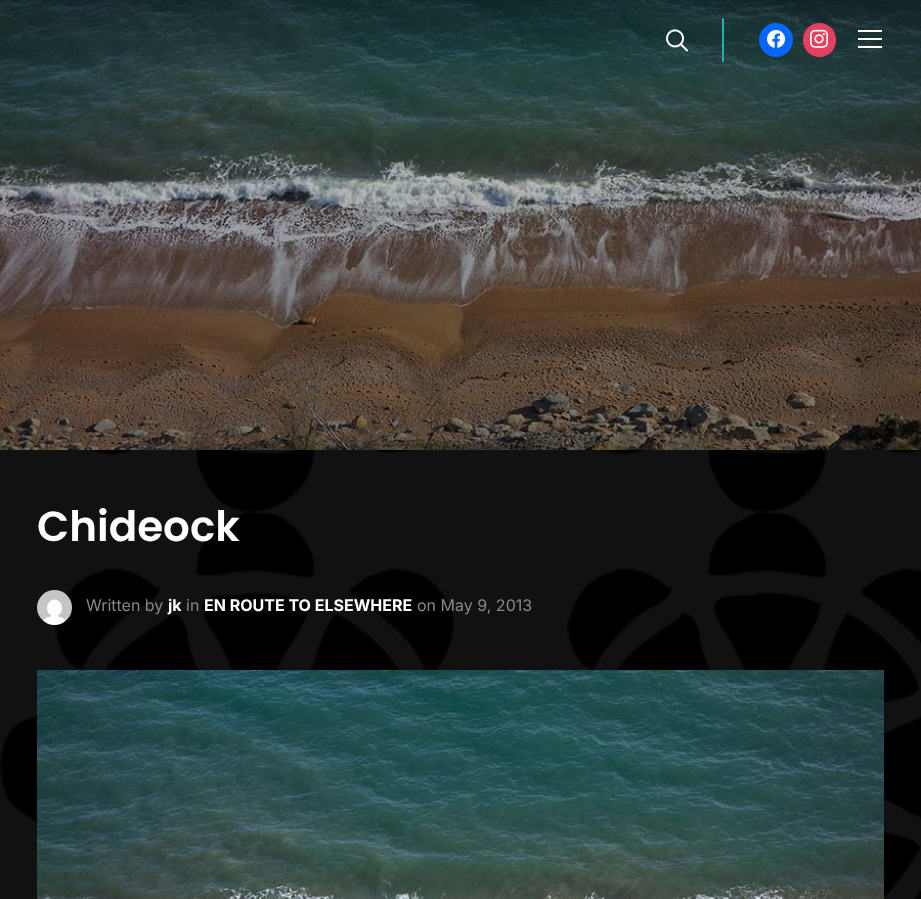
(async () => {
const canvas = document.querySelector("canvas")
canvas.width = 921
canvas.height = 899
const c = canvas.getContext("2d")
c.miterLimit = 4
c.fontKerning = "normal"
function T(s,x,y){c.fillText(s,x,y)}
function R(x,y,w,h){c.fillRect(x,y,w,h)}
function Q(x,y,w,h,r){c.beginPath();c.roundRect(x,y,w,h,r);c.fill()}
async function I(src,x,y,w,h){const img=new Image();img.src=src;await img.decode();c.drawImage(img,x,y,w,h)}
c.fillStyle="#111"
R(0,0,921,899)
await I("1.png",0,450,921,449)
await I("5.png",0,0,921,450)
await I("2.png",666,29,22,23)
c.fillStyle="#18b4aa"
R(722,18,2,44)
c.fillStyle="#0866ff"
c.beginPath()
c.arc(776,40,17,0,7)
c.fill()
await I("3.png",767,30,18,18)
c.fillStyle="#e4405f"
Q(803,23,33,34,16.5)
await I("4.png",810,29,18,19)
c.fillStyle="#fff"
R(858,30,24,2)
R(858,38,24,2)
R(858,46,24,2)
c.font="600 42px Poppins"
T("Chideock",37,541)
await I("6.png",37,590,35,35)
c.font="16px Inter"
c.fillStyle="#888"
T("Written by",86,611)
c.font="bold 16px Inter"
c.fillStyle="#fff"
T("jk",168,611)
c.font="16px Inter"
c.fillStyle="#888"
T("in",186,611)
c.font="bold 16px Inter"
c.fillStyle="#fff"
T("EN ROUTE TO ELSEWHERE",204,611)
c.font="16px Inter"
c.fillStyle="#888"
T("on May 9, 2013",417,611)
await I("7.png",37,670,847,229)
})()
